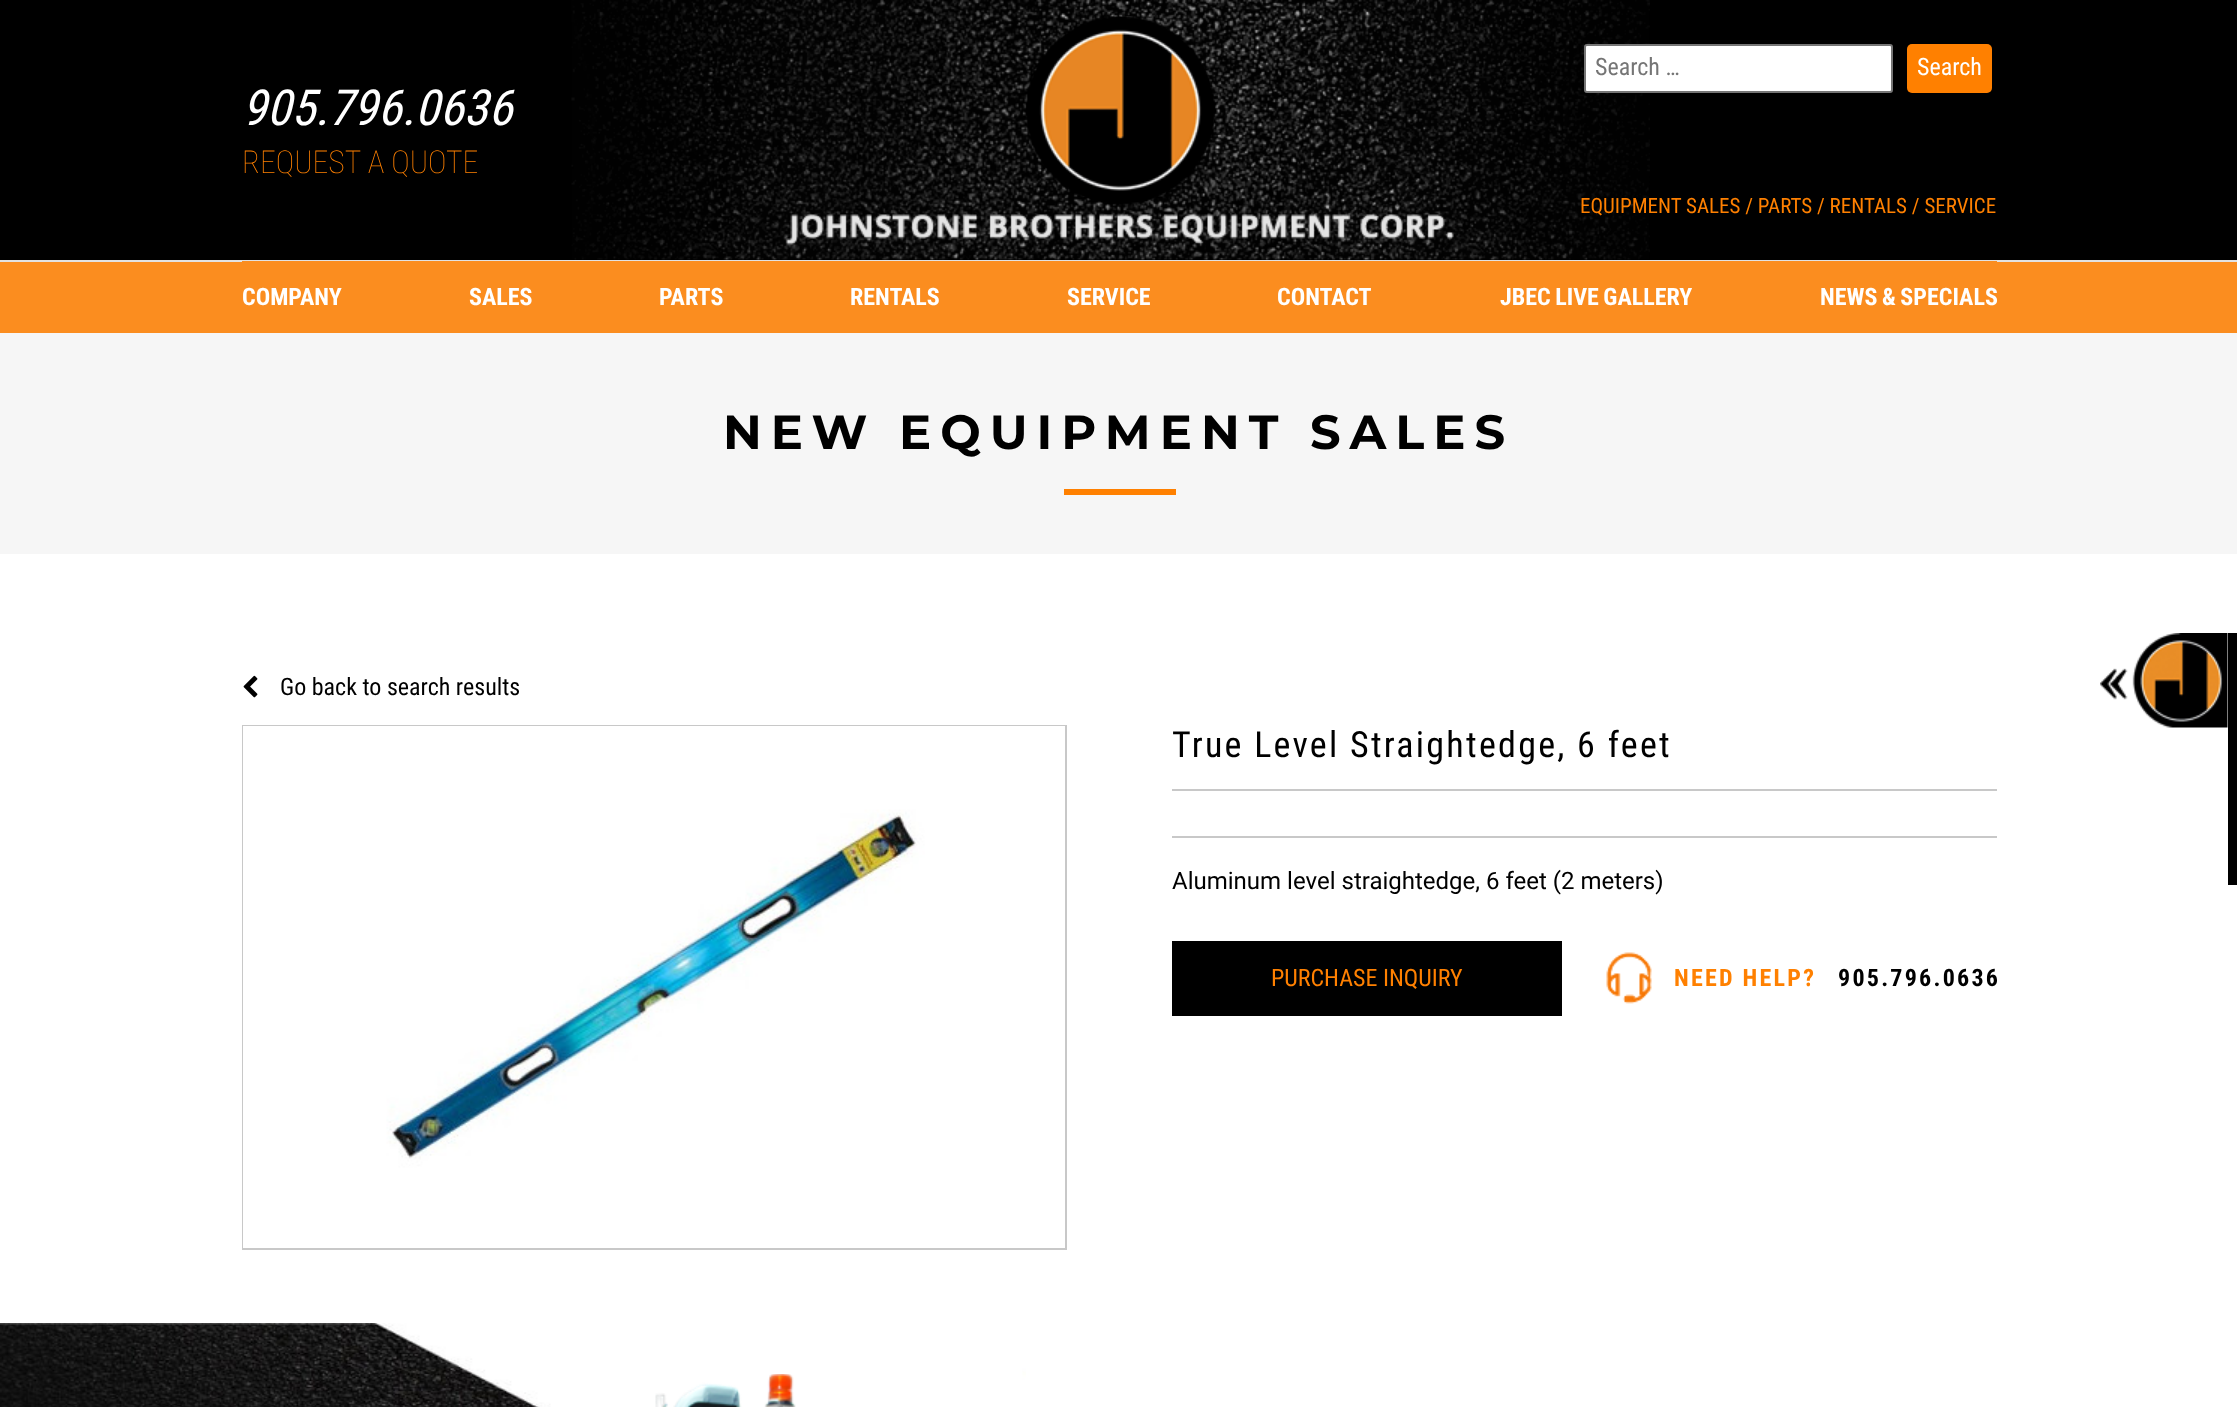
(async () => {
const canvas = document.querySelector("canvas")
canvas.width = 2237
canvas.height = 1407
const c = canvas.getContext("2d")
c.miterLimit = 4
c.fontKerning = "normal"
function T(s,x,y){c.fillText(s,x,y)}
function R(x,y,w,h){c.fillRect(x,y,w,h)}
function Q(x,y,w,h,r){c.beginPath();c.roundRect(x,y,w,h,r);c.fill()}
async function I(src,x,y,w,h){const img=new Image();img.src=src;await img.decode();c.drawImage(img,x,y,w,h)}
c.fillStyle="#fff"
R(0,0,2237,1407)
c.fillStyle="#000"
R(0,0,2237,260)
await I("1.png",571,0,1079,260)
c.font="italic 49.5px Roboto Condensed"
c.fillStyle="#fff"
T("905.796.0636",242,125)
c.font="100 31.5px Roboto Condensed"
c.fillStyle="#ff8000"
T("REQUEST A QUOTE",242,173)
await I("2.png",785,16,669,229)
c.fillStyle="#fff"
c.beginPath()
c.roundRect(1585,45,307,47,2)
c.fill()
c.strokeStyle="#767676"
c.lineWidth=2
c.stroke()
c.font="24px Roboto Condensed"
c.fillStyle="#757575"
T("Search …",1595,75)
c.fillStyle="#ff8000"
Q(1907,44,85,49,5)
c.fillStyle="#fff"
T("Search",1917,75)
c.font="21px Roboto Condensed"
c.fillStyle="#ff8000"
T("EQUIPMENT SALES / PARTS / RENTALS / SERVICE",1580,213)
c.fillStyle="#fb8d1f"
R(0,262,2237,71)
c.fillStyle="#e2e2e2"
R(0,260,2237,2)
c.fillStyle="#fb8d1f"
R(242,261,1755,1)
c.font="bold 24px Roboto Condensed"
c.fillStyle="#fff"
T("COMPANY",242,305)
T("SALES",469,305)
T("PARTS",659,305)
T("RENTALS",850,305)
T("SERVICE",1067,305)
T("CONTACT",1277,305)
c.wordSpacing="-1px"
T("JBEC LIVE GALLERY",1500,305)
T("NEWS & SPECIALS",1820,305)
c.fillStyle="#f6f6f6"
R(0,333,2237,221)
c.letterSpacing="9px"
c.wordSpacing="0px"
c.font="bold 48px Montserrat"
c.fillStyle="#000"
T("NEW EQUIPMENT SALES",723,449)
c.fillStyle="#ff8000"
R(1064,489,112,6)
await I("3.png",243,675,15,23)
c.letterSpacing="0px"
c.font="24px Roboto Condensed"
c.fillStyle="#000"
T("Go back to search results",280,695)
c.strokeStyle="#c8c8c8"
c.strokeRect(243,726,823,523)
await I("4.png",243,726,822,522)
c.letterSpacing="2.25px"
c.font="36px Roboto Condensed"
T("True Level Straightedge, 6 feet",1172,757)
c.fillStyle="#c8c8c8"
R(1172,789,825,2)
R(1172,836,825,2)
c.letterSpacing="0px"
c.font="24px Roboto"
c.fillStyle="#000"
T("Aluminum level straightedge, 6 feet (2 meters)",1172,889)
R(1172,941,390,75)
c.font="24px Roboto Condensed"
c.fillStyle="#ff8000"
T("PURCHASE INQUIRY",1271,986)
await I("5.png",1606,952,46,52)
c.letterSpacing="2.25px"
c.font="bold 24px Roboto Condensed"
T("NEED HELP?",1674,986)
c.fillStyle="#000"
T("905.796.0636",1838,986)
R(2228,633,9,252)
await I("6.png",2100,633,128,95)
await I("7.png",0,1323,1026,84)
await I("8.png",655,1374,141,33)
})()
